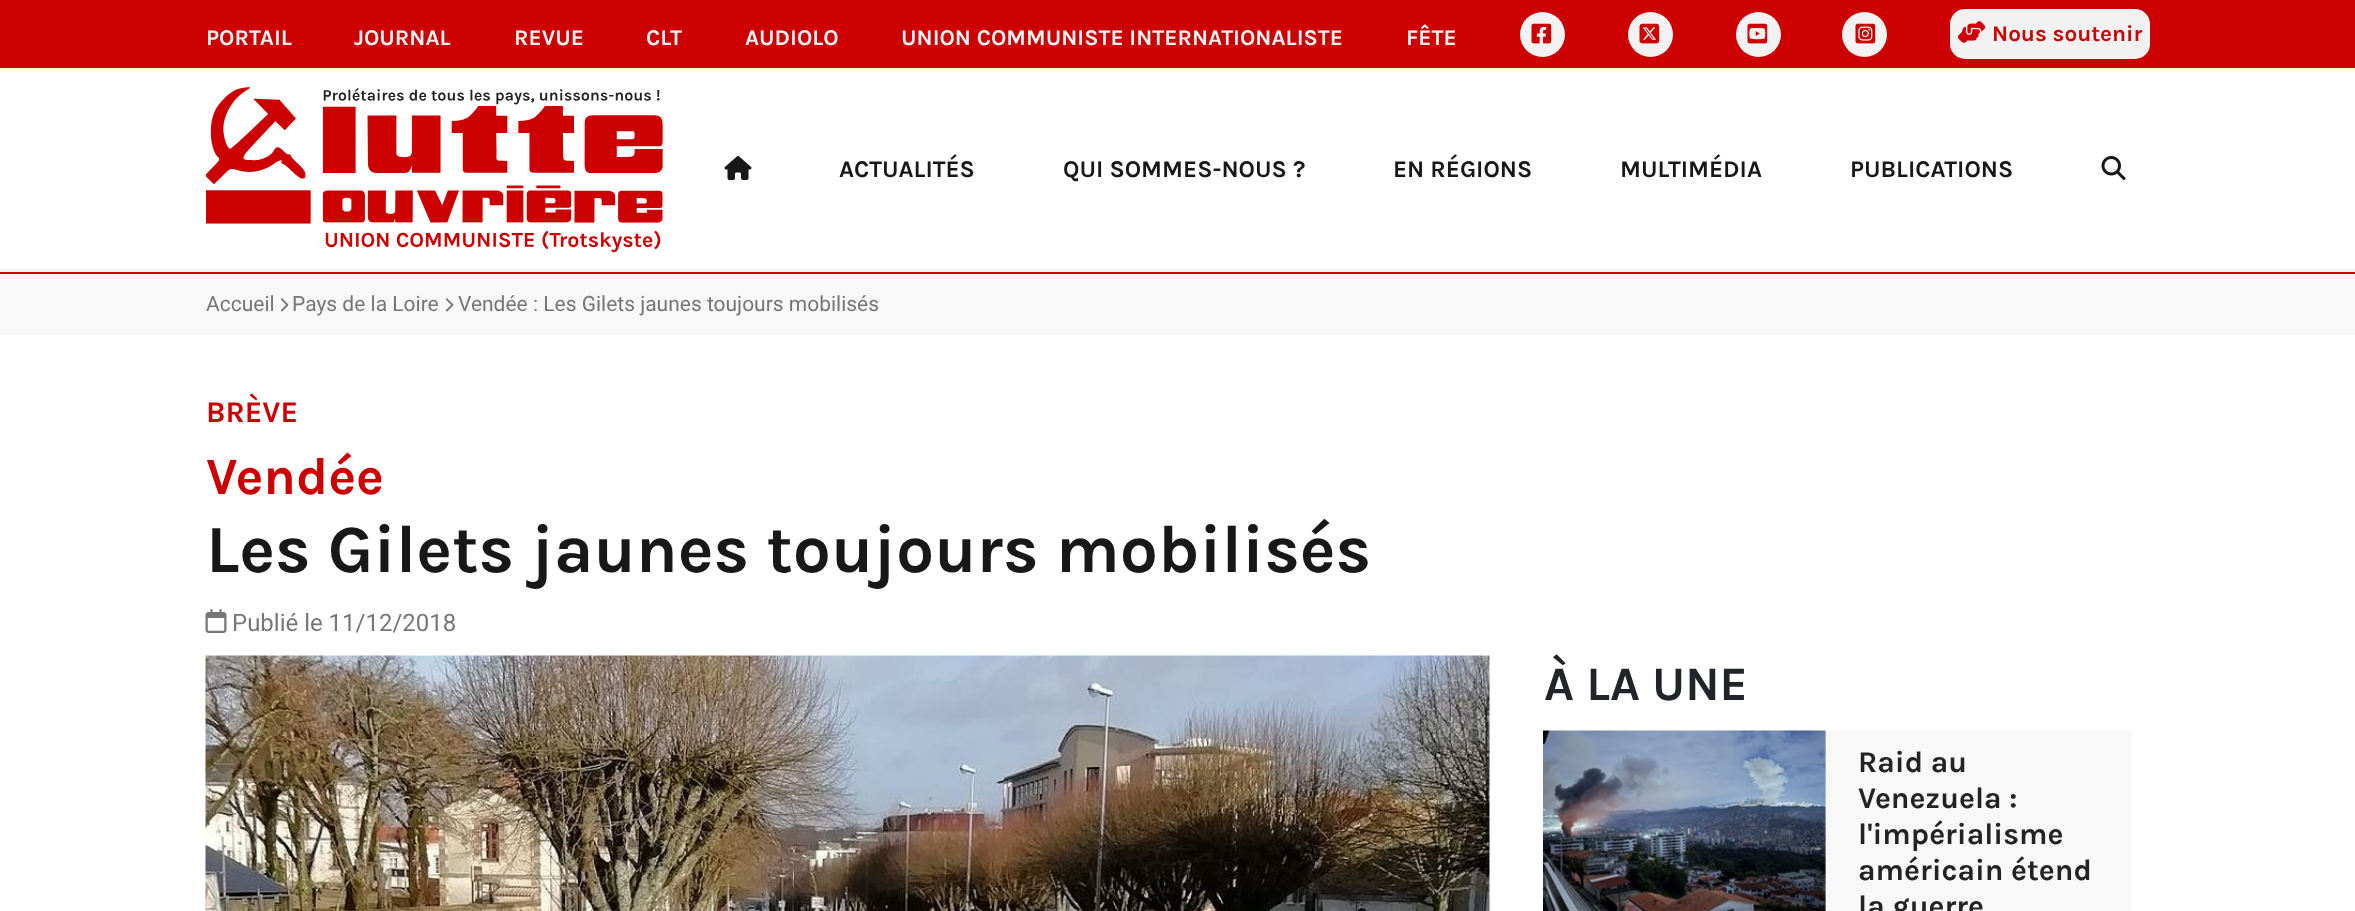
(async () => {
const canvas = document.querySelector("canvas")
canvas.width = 2355
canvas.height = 911
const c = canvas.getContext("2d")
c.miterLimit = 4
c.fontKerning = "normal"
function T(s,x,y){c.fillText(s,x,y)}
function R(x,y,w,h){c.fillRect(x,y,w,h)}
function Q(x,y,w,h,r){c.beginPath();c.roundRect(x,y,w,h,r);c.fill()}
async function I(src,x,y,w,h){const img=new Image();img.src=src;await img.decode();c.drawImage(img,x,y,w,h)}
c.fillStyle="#fff"
R(0,0,2355,911)
c.fillStyle="#f2f2f2"
R(0,269,2355,3)
c.fillStyle="#c00"
R(0,0,2355,68)
c.fillStyle="#fffecb"
R(0,68,2355,3)
c.font="bold 22.5px Karla"
c.fillStyle="#f2f2f2"
T("PORTAIL",206,45)
T("JOURNAL",354,45)
T("REVUE",514,45)
T("CLT",646,45)
T("AUDIOLO",745,45)
T("UNION COMMUNISTE INTERNATIONALISTE",901,45)
T("FÊTE",1406,45)
c.beginPath()
c.arc(1542.5,34.5,22.5,0,7)
c.fill()
await I("1.png",1531,23,21,21)
c.beginPath()
c.arc(1650.5,34.5,22.5,0,7)
c.fill()
await I("2.png",1639,23,21,21)
c.beginPath()
c.arc(1758.5,34.5,22.5,0,7)
c.fill()
await I("3.png",1747,23,21,21)
c.beginPath()
c.arc(1864.5,34.5,22.5,0,7)
c.fill()
await I("4.png",1855,23,21,21)
Q(1950,9,200,50,15)
await I("5.png",1958,21,28,22)
c.fillStyle="#c00"
T("Nous soutenir",1992,41)
await I("6.png",206,87,457,166)
await I("7.png",724,156,28,24)
c.font="bold 24px Karla"
c.fillStyle="#181818"
T("ACTUALITÉS",839,177)
T("QUI SOMMES-NOUS ?",1063,177)
T("EN RÉGIONS",1393,177)
T("MULTIMÉDIA",1620,177)
T("PUBLICATIONS",1850,177)
await I("8.png",2101,156,25,24)
c.fillStyle="#f8f8f8"
R(0,274,2355,61)
c.fillStyle="#c00"
R(0,272,2355,2)
c.font="21px Roboto"
c.fillStyle="#767676"
T("Accueil",206,311)
await I("9.png",280,298,9,14)
T("Pays de la Loire",292,311)
await I("9.png",445,298,9,14)
T("Vendée : Les Gilets jaunes toujours mobilisés",458,311)
c.font="bold 30px Karla"
c.fillStyle="#c00"
T("BRÈVE",206,422)
c.font="bold 52.5px Karla"
T("Vendée",206,494)
c.font="bold 67.5px Karla"
c.fillStyle="#181818"
T("Les Gilets jaunes toujours mobilisés",206,572)
await I("10.png",205,609,22,24)
c.font="24px Roboto"
c.fillStyle="#767676"
T("Publié le 11/12/2018",232,631)
await I("11.png",205,655,1285,256)
c.font="bold 48px Karla"
c.fillStyle="#212529"
T("À LA UNE",1544,700)
c.fillStyle="#f8f8f8"
R(1826,731,306,180)
c.fillStyle="#f9e5e5"
R(1824,731,2,180)
await I("12.png",1543,730,283,181)
c.font="bold 30px Karla"
c.fillStyle="#232323"
T("Raid au",1858,772)
T("Venezuela :",1858,808)
T("l'impérialisme",1858,844)
T("américain étend",1858,880)
T("la guerre",1858,916)
})()
